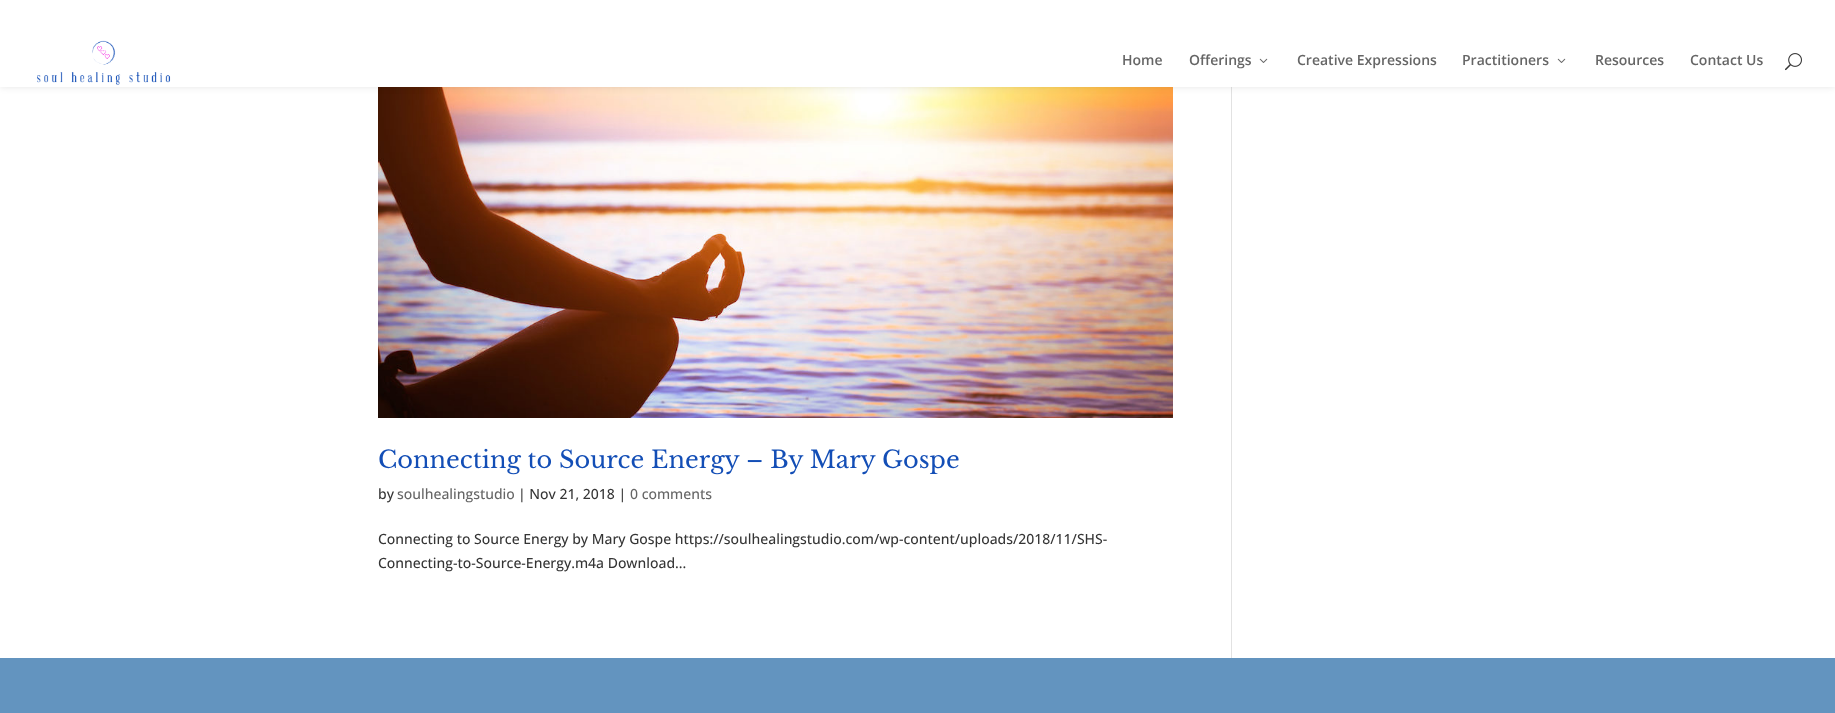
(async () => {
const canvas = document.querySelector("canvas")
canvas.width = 1835
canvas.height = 713
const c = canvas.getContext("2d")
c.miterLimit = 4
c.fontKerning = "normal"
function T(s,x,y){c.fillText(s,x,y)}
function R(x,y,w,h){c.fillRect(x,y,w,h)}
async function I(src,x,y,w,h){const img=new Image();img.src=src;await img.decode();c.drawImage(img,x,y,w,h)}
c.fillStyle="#6394bf"
R(0,0,1835,713)
c.fillStyle="#fff"
R(0,87,1835,571)
await I("4.png",378,87,795,331)
c.fillStyle="#e2e2e2"
R(1231,87,1,571)
c.fillStyle="#0000001a"
c.filter="blur(3.5px)"
c.beginPath()
c.rect(0,33,1835,54)
c.fill()
c.filter="none"
c.fillStyle="#fff"
R(0,0,1835,87)
await I("1.png",37,40,134,45)
c.font="600 14px Open Sans"
c.fillStyle="#666"
T("Home",1122,65)
T("Offerings",1189,65)
await I("2.png",1259,58,9,5)
T("Creative Expressions",1297,65)
T("Practitioners",1462,65)
await I("2.png",1557,58,9,5)
T("Resources",1595,65)
T("Contact Us",1690,65)
await I("3.png",1785,53,17,18)
c.font="24px Libre Baskerville"
c.fillStyle="#134eb6"
T("Connecting to Source Energy – By Mary Gospe",378,468)
c.font="500 14px Open Sans"
c.fillStyle="#353535"
T("by",378,499)
c.fillStyle="#666"
T("soulhealingstudio",397,499)
c.fillStyle="#353535"
T("| Nov 21, 2018 |",518,499)
c.fillStyle="#666"
T("0 comments",630,499)
c.fillStyle="#353535"
T("Connecting to Source Energy by Mary Gospe https://soulhealingstudio.com/wp-content/uploads/2018/11/SHS-",378,544)
T("Connecting-to-Source-Energy.m4a Download...",378,568)
})()
